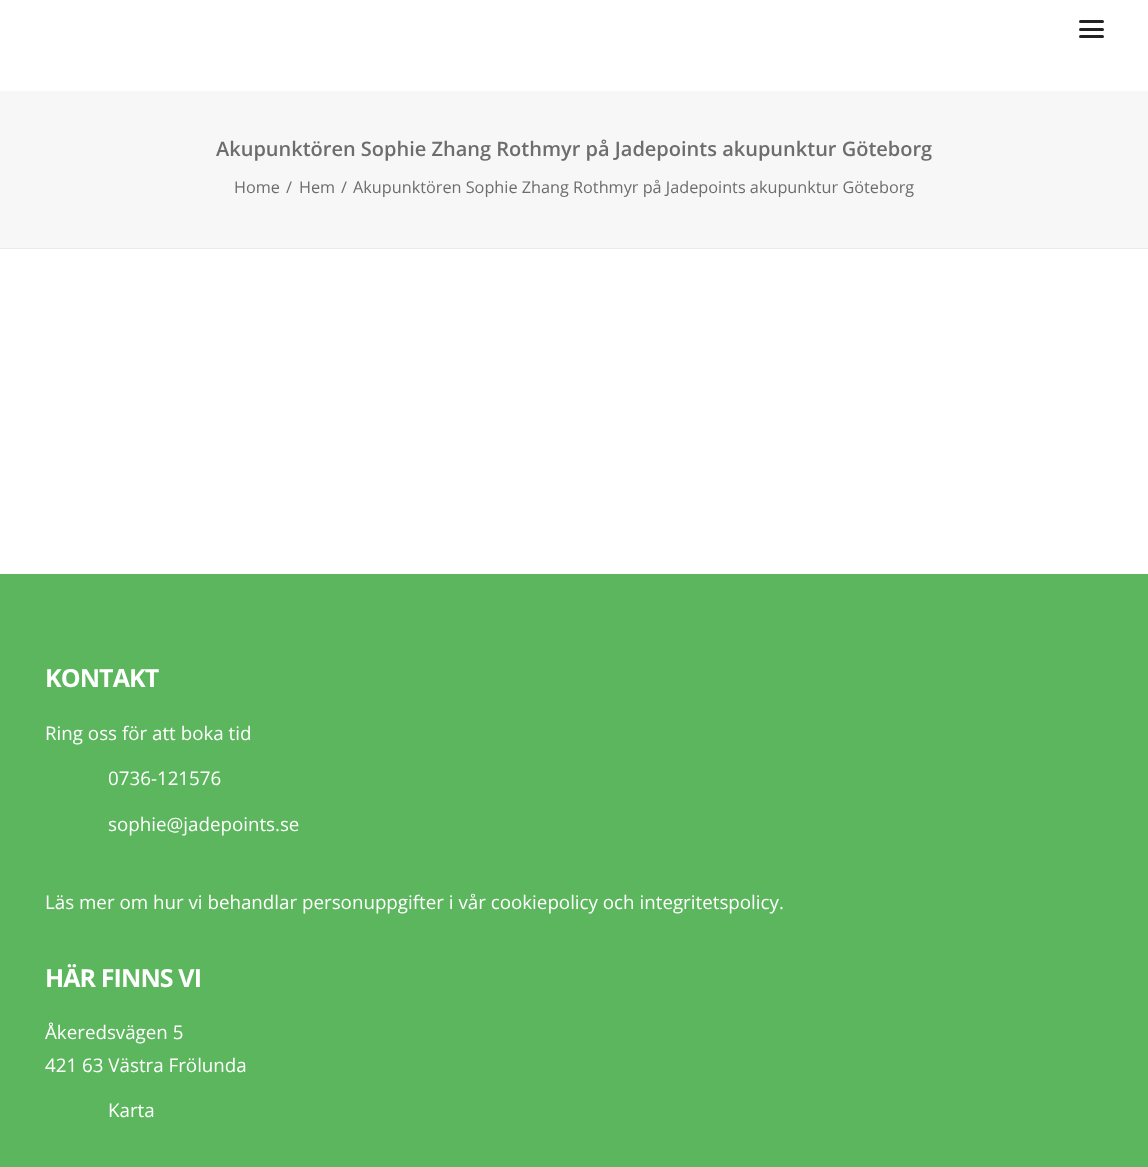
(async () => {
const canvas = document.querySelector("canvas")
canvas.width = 1148
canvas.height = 1167
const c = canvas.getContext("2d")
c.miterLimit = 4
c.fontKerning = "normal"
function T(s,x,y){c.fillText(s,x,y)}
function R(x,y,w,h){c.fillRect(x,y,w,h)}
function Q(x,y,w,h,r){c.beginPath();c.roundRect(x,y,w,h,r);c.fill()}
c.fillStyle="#fff"
R(0,0,1148,1167)
c.fillStyle="#222"
Q(1079,28,25,3,1.5)
Q(1079,20,25,3,1.5)
Q(1079,35,25,3,1.5)
c.fillStyle="#f7f7f7"
R(0,91,1148,157)
c.fillStyle="#eaeaea"
R(0,248,1148,1)
c.font="600 20px Open Sans"
c.fillStyle="#6d6d6d"
T("Akupunktören Sophie Zhang Rothmyr på Jadepoints akupunktur Göteborg",216,156)
c.font="16.25px Open Sans"
T("Home",234,193)
T("/",286,193)
T("Hem",299,193)
T("/",341,193)
T("Akupunktören Sophie Zhang Rothmyr på Jadepoints akupunktur Göteborg",353,193)
c.fillStyle="#5bb65d"
R(0,574,1148,593)
c.letterSpacing="-0.9px"
c.font="bold 25px Open Sans"
c.fillStyle="#fff"
T("KONTAKT",45,687)
c.letterSpacing="0px"
c.font="18.75px Open Sans"
T("Ring oss för att boka tid",45,740)
T("0736-121576",108,785)
T("sophie@jadepoints.se",108,831)
T("Läs mer om hur vi behandlar personuppgifter i vår cookiepolicy och integritetspolicy.",45,909)
c.letterSpacing="-0.9px"
c.font="bold 25px Open Sans"
T("HÄR FINNS VI",45,987)
c.letterSpacing="0px"
c.font="18.75px Open Sans"
T("Åkeredsvägen 5",45,1039)
T("421 63 Västra Frölunda",45,1072)
T("Karta",108,1117)
})()
